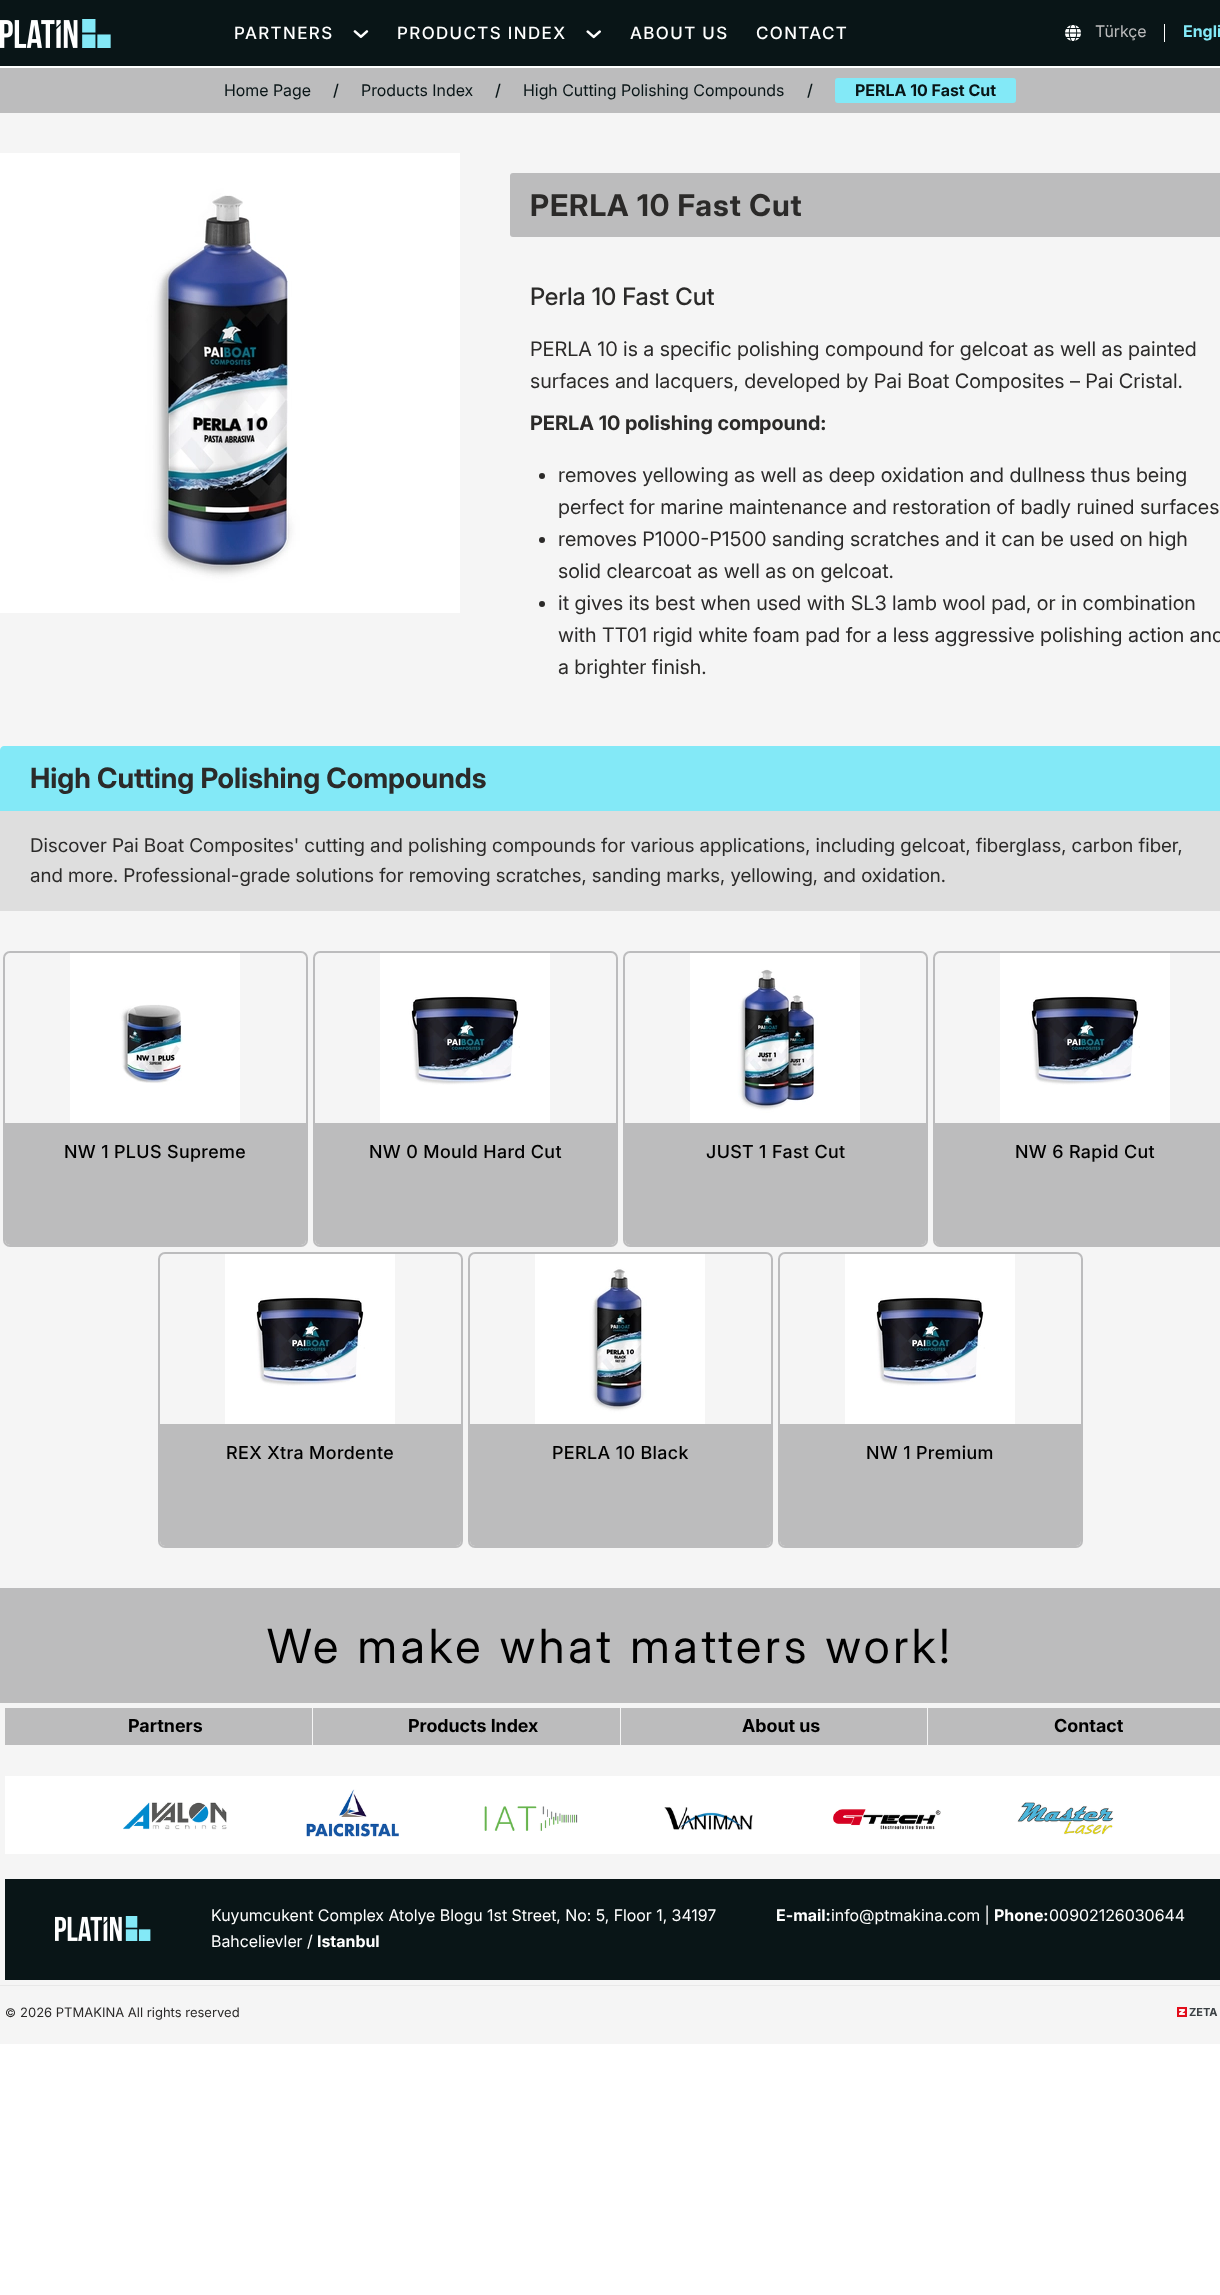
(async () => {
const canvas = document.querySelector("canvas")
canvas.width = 1220
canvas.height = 2295
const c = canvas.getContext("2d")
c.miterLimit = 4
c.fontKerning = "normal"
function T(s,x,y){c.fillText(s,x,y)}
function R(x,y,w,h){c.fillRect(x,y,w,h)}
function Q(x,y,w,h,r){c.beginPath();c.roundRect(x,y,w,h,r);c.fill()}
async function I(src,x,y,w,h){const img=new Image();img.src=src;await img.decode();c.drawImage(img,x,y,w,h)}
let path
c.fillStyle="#fff"
R(0,0,1220,2295)
c.fillStyle="#f5f5f5"
R(0,113,1220,1931)
c.fillStyle="#091517"
R(0,0,1220,66)
await I("1.png",0,19,111,29)
c.letterSpacing="1.4px"
c.font="500 17px 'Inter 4'"
c.fillStyle="#fff"
T("PARTNERS",234,39)
await I("2.png",353,30,16,8)
T("PRODUCTS INDEX",397,39)
await I("3.png",586,30,15,9)
T("ABOUT US",630,39)
T("CONTACT",756,39)
await I("4.png",1065,25,16,16)
c.letterSpacing="0px"
c.font="16px 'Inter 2'"
c.fillStyle="#bcbcbd"
T("Türkçe",1095,37)
c.fillStyle="#fff"
R(1164,24,1,18)
c.font="bold 16px Inter"
c.fillStyle="#83e9f7"
T("Engli",1183,37)
c.fillStyle="#bcbcbd"
R(0,68,1220,45)
c.font="16px 'Inter 2'"
c.fillStyle="#091517"
T("Home Page",224,96)
c.font="500 16px Inter"
T("/",333,96)
c.font="16px 'Inter 2'"
T("Products Index",361,96)
c.font="500 16px Inter"
T("/",495,96)
c.font="16px 'Inter 2'"
T("High Cutting Polishing Compounds",523,96)
c.font="500 16px Inter"
T("/",807,96)
c.fillStyle="#83e9f7"
Q(835,78,181,25,3)
c.font="bold 16px Inter"
c.fillStyle="#091517"
T("PERLA 10 Fast Cut",855,96)
await I("5.png",0,153,460,460)
c.fillStyle="#bcbcbd"
Q(510,173,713,64,3)
c.letterSpacing="0.9px"
c.font="bold 30px 'Inter 2'"
c.fillStyle="#2b2a29"
T("PERLA 10 Fast Cut",530,216)
c.letterSpacing="0px"
c.font="500 24px 'Inter 2'"
T("Perla 10 Fast Cut",530,305)
c.font="20px 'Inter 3'"
T("PERLA 10 is a specific polishing compound for gelcoat as well as painted",530,356)
T("surfaces and lacquers, developed by Pai Boat Composites – Pai Cristal.",530,388)
c.font="bold 20px 'Inter 3'"
T("PERLA 10 polishing compound:",530,430)
c.beginPath()
c.arc(542,476,3,0,7)
c.fill()
c.font="20px 'Inter 3'"
T("removes yellowing as well as deep oxidation and dullness thus being",558,482)
T("perfect for marine maintenance and restoration of badly ruined surfaces",558,514)
c.beginPath()
c.arc(542,540,3,0,7)
c.fill()
T("removes P1000-P1500 sanding scratches and it can be used on high",558,546)
T("solid clearcoat as well as on gelcoat.",558,578)
c.beginPath()
c.arc(542,604,3,0,7)
c.fill()
T("it gives its best when used with SL3 lamb wool pad, or in combination",558,610)
T("with TT01 rigid white foam pad for a less aggressive polishing action and",558,642)
T("a brighter finish.",558,674)
c.fillStyle="#83e9f7"
path = new Path2D("M4 746h1216c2 0 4 2 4 4v61h-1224v-61c0-2 2-4 4-4z")
c.fill(path)
c.font="bold 28px 'Inter 4'"
c.fillStyle="#2b2a29"
T("High Cutting Polishing Compounds",30,788)
c.fillStyle="#dedede"
R(0,811,1220,100)
c.font="19px 'Inter 4'"
c.fillStyle="#2b2a29"
T("Discover Pai Boat Composites' cutting and polishing compounds for various applications, including gelcoat, fiberglass, carbon fiber,",30,852)
T("and more. Professional-grade solutions for removing scratches, sanding marks, yellowing, and oxidation.",30,882)
c.beginPath()
c.roundRect(4,952,303,294,6)
c.strokeStyle="#bcbcbd"
c.lineWidth=2
c.stroke()
await I("6.png",70,953,170,170)
c.fillStyle="#bcbcbd"
c.beginPath()
c.roundRect(5,1123,301,122,[0,0,5,5])
c.fill()
c.letterSpacing="0.4px"
c.font="500 18px 'Inter 3'"
c.fillStyle="#000"
T("NW 1 PLUS Supreme",64,1158)
c.beginPath()
c.roundRect(314,952,303,294,6)
c.stroke()
await I("7.png",380,953,170,170)
c.fillStyle="#bcbcbd"
c.beginPath()
c.roundRect(315,1123,301,122,[0,0,5,5])
c.fill()
c.fillStyle="#000"
T("NW 0 Mould Hard Cut",369,1158)
c.beginPath()
c.roundRect(624,952,303,294,6)
c.stroke()
await I("8.png",690,953,170,170)
c.fillStyle="#bcbcbd"
c.beginPath()
c.roundRect(625,1123,301,122,[0,0,5,5])
c.fill()
c.fillStyle="#000"
T("JUST 1 Fast Cut",706,1158)
c.beginPath()
c.roundRect(934,952,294,294,6)
c.stroke()
await I("7.png",1000,953,170,170)
c.fillStyle="#bcbcbd"
path = new Path2D("M935 1123h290v117c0 3-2 5-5 5h-280c-3 0-5-2-5-5z")
c.fill(path)
c.fillStyle="#000"
T("NW 6 Rapid Cut",1015,1158)
c.beginPath()
c.roundRect(159,1253,303,294,6)
c.stroke()
await I("7.png",225,1254,170,170)
c.fillStyle="#bcbcbd"
c.beginPath()
c.roundRect(160,1424,301,122,[0,0,5,5])
c.fill()
c.fillStyle="#000"
T("REX Xtra Mordente",226,1459)
c.beginPath()
c.roundRect(469,1253,303,294,6)
c.stroke()
await I("9.png",535,1254,170,170)
c.fillStyle="#bcbcbd"
c.beginPath()
c.roundRect(470,1424,301,122,[0,0,5,5])
c.fill()
c.fillStyle="#000"
T("PERLA 10 Black",552,1459)
c.beginPath()
c.roundRect(779,1253,303,294,6)
c.stroke()
await I("7.png",845,1254,170,170)
c.fillStyle="#bcbcbd"
c.beginPath()
c.roundRect(780,1424,301,122,[0,0,5,5])
c.fill()
c.fillStyle="#000"
T("NW 1 Premium",866,1459)
c.fillStyle="#bcbcbd"
R(0,1588,1220,115)
c.letterSpacing="3.75px"
c.font="47px Inter"
c.fillStyle="#000"
T("We make what matters work!",267,1663)
c.fillStyle="#bcbcbd"
R(5,1708,307,37)
c.letterSpacing="0px"
c.font="bold 18px 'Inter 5'"
c.fillStyle="#000"
T("Partners",128,1732)
c.fillStyle="#bcbcbd"
R(313,1708,307,37)
c.fillStyle="#000"
T("Products Index",408,1732)
c.fillStyle="#bcbcbd"
R(621,1708,306,37)
c.fillStyle="#000"
T("About us",742,1732)
c.fillStyle="#bcbcbd"
R(928,1708,292,37)
c.fillStyle="#000"
T("Contact",1054,1732)
c.fillStyle="#fff"
R(5,1776,1215,78)
await I("10.png",123,1802,104,28)
await I("11.png",306,1789,93,48)
await I("12.png",484,1806,94,25)
await I("13.png",664,1807,89,23)
await I("14.png",833,1809,108,21)
await I("15.png",1017,1802,97,33)
c.fillStyle="#091517"
R(5,1879,1215,101)
await I("16.png",55,1916,96,25)
c.font="16px 'Inter 2'"
c.fillStyle="#fff"
T("Kuyumcukent Complex Atolye Blogu 1st Street, No: 5, Floor 1, 34197",211,1921)
T("Bahcelievler /",211,1947)
c.font="bold 16px Inter"
T("Istanbul",317,1947)
T("E-mail:",776,1921)
c.font="16px 'Inter 2'"
T("info@ptmakina.com |",831,1921)
c.font="bold 16px Inter"
T("Phone:",994,1921)
c.font="16px 'Inter 2'"
T("00902126030644",1049,1921)
c.fillStyle="#e8e8e8"
R(0,1985,1220,1)
c.font="12px 'Inter 5'"
c.fillStyle="#2b2a29"
T("©",5,2017)
c.font="13px 'Inter 5'"
T("2026 PTMAKINA All rights reserved",20,2017)
await I("17.png",1177,2007,10,10)
c.font="bold 11px 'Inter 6'"
c.fillStyle="#3b4044"
T("ZETA",1189,2016)
})()
